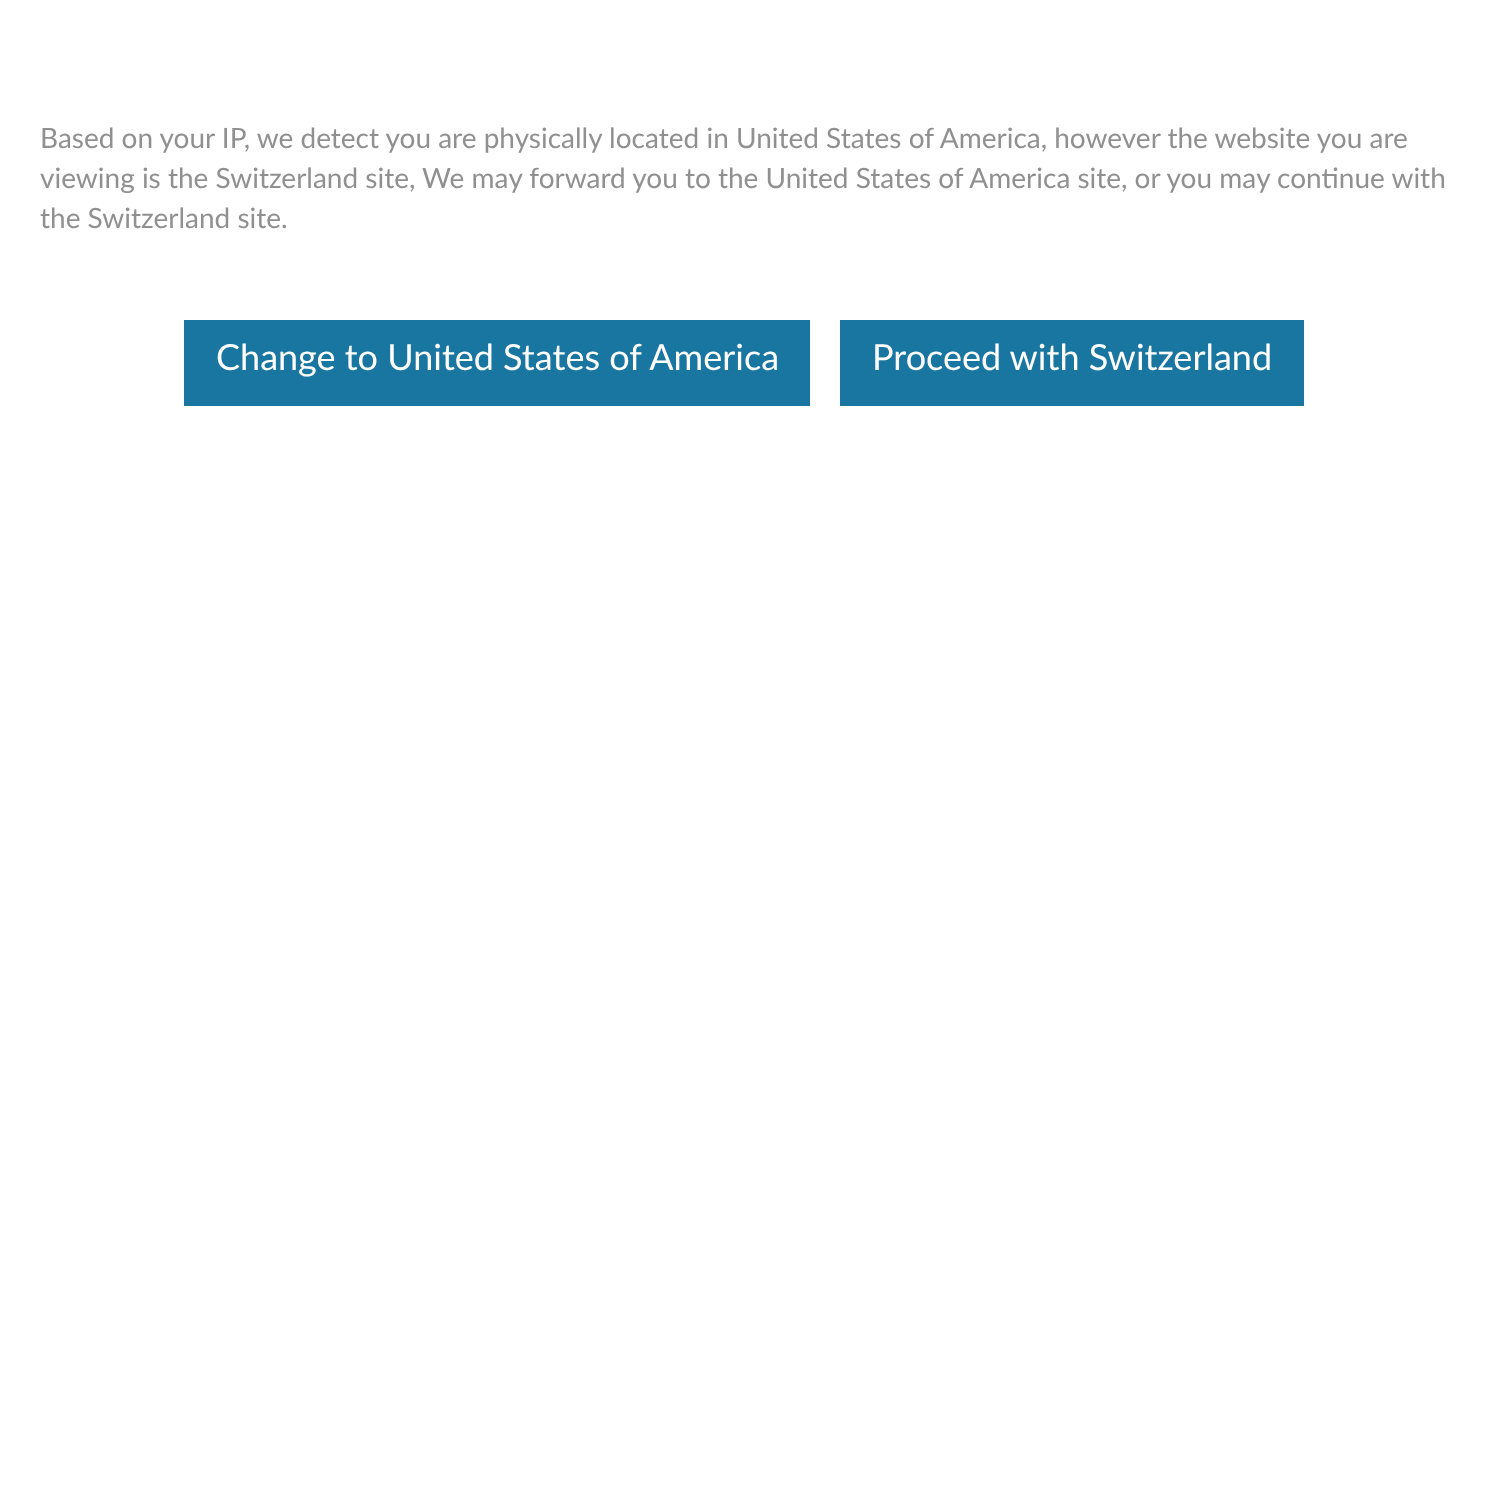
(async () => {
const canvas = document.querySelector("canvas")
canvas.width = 1487
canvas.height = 1485
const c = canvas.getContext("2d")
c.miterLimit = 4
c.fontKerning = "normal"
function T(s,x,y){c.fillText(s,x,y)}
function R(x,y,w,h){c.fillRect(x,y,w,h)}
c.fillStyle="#fff"
R(0,0,1487,1485)
c.font="28px Lato"
c.fillStyle="#909090"
T("Based on your IP, we detect you are physically located in United States of America, however the website you are",40,148)
T("viewing is the Switzerland site, We may forward you to the United States of America site, or you may continue with",40,188)
T("the Switzerland site.",40,228)
c.fillStyle="#1976a1"
R(184,320,626,86)
c.font="36px Lato"
c.fillStyle="#fff"
T("Change to United States of America",216,370)
c.fillStyle="#1976a1"
R(840,320,464,86)
c.fillStyle="#fff"
T("Proceed with Switzerland",872,370)
})()
